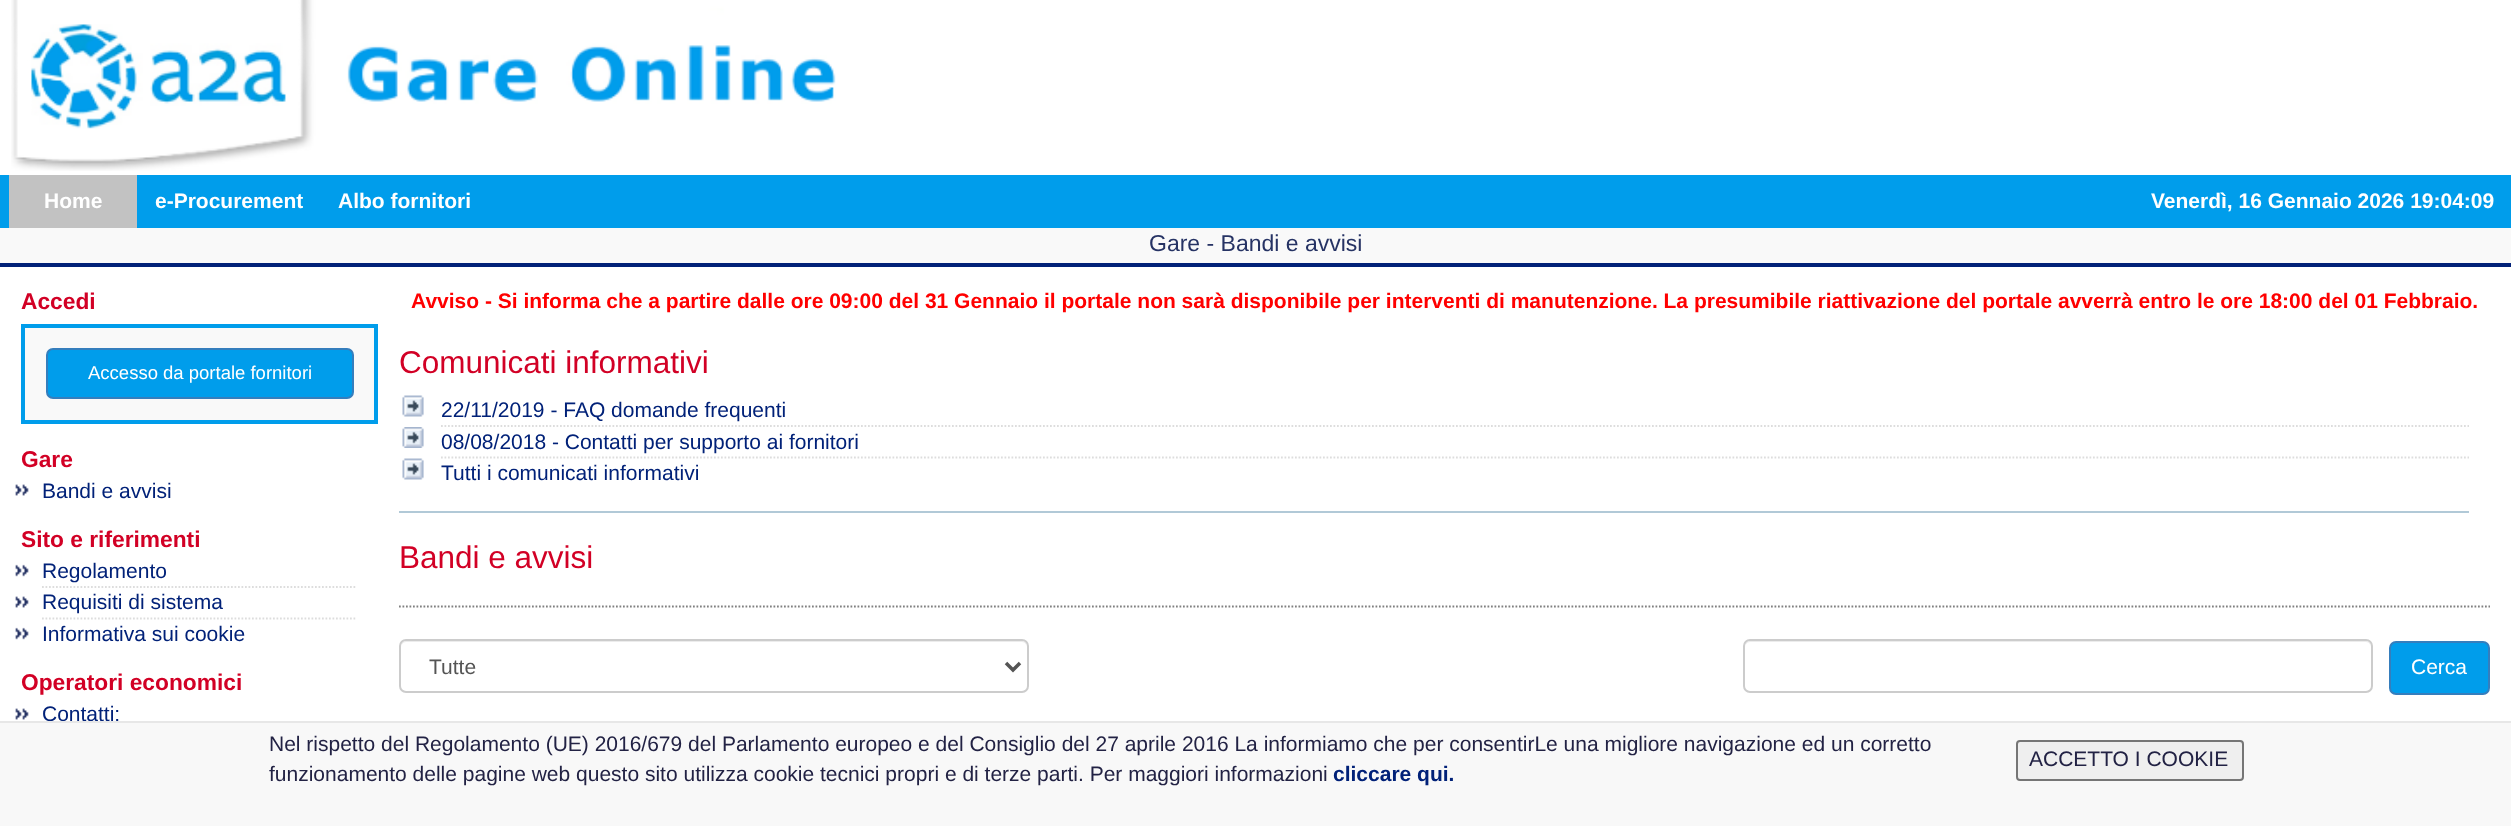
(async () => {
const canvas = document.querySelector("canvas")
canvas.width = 2511
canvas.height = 826
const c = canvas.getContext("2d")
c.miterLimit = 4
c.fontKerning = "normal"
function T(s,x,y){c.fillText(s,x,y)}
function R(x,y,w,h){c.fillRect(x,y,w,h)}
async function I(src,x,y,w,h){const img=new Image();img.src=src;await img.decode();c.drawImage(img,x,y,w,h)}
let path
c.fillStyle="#fff"
R(0,0,2511,826)
await I("1.png",11,0,825,171)
c.fillStyle="#009deb"
R(0,175,2511,53)
c.fillStyle="#c2c2c2"
R(9,175,128,53)
c.font="bold 21px Liberation Sans"
c.fillStyle="#fff"
T("Home",44,208)
T("e-Procurement",155,208)
T("Albo fornitori",338,208)
T("Venerdì, 16 Gennaio 2026 19:04:09",2151,208)
c.fillStyle="#f8f8f8"
R(0,723,2511,103)
c.font="21px Liberation Sans"
c.fillStyle="#012178"
T("Contatti:",42,721)
c.fillStyle="#e7e7e7"
R(0,721,2511,2)
c.fillStyle="#224"
T("Nel rispetto del Regolamento (UE) 2016/679 del Parlamento europeo e del Consiglio del 27 aprile 2016 La informiamo che per consentirLe una migliore navigazione ed un corretto",269,751)
T("funzionamento delle pagine web questo sito utilizza cookie tecnici propri e di terze parti. Per maggiori informazioni",269,781)
c.font="bold 21px Liberation Sans"
c.fillStyle="#012178"
T("cliccare qui.",1333,781)
c.fillStyle="#efefef"
c.beginPath()
c.roundRect(2017,741,226,39,3)
c.fill()
c.strokeStyle="#767676"
c.lineWidth=2
c.stroke()
c.font="21px Liberation Sans"
c.fillStyle="#224"
T("ACCETTO I COOKIE",2029,766)
c.fillStyle="#f9f9f9"
R(0,228,2511,35)
c.fillStyle="#012178"
R(0,263,2511,4)
c.font="23px Liberation Sans"
c.fillStyle="#263364"
T("Gare - Bandi e avvisi",1149,251)
c.font="bold 22.75px Liberation Sans"
c.fillStyle="#d20025"
T("Accedi",21,309)
c.fillStyle="#f9f9f9"
c.beginPath()
c.rect(23,326,353,96)
c.fill()
c.strokeStyle="#009deb"
c.lineWidth=4
c.stroke()
c.fillStyle="#009deb"
c.beginPath()
c.roundRect(47,349,306,49,6)
c.fill()
c.strokeStyle="#357ebd"
c.lineWidth=2
c.stroke()
c.font="18.5px Liberation Sans"
c.fillStyle="#fff"
T("Accesso da portale fornitori",88,379)
c.font="bold 22.75px Liberation Sans"
c.fillStyle="#d20025"
T("Gare",21,467)
await I("2.png",15,484,14,12)
c.font="21px Liberation Sans"
c.fillStyle="#012178"
T("Bandi e avvisi",42,498)
c.font="bold 22.75px Liberation Sans"
c.fillStyle="#d20025"
T("Sito e riferimenti",21,547)
await I("3.png",15,564,14,13)
c.font="21px Liberation Sans"
c.fillStyle="#012178"
T("Regolamento",42,578)
path = new Path2D("M42 587h315")
c.strokeStyle="#ddd"
c.lineWidth=1.8
c.setLineDash([1.75,1.75])
c.stroke(path)
await I("2.png",15,596,14,12)
T("Requisiti di sistema",42,609)
path = new Path2D("M42 618.5h315")
c.stroke(path)
await I("3.png",15,627,14,13)
T("Informativa sui cookie",42,641)
c.font="bold 22.75px Liberation Sans"
c.fillStyle="#d20025"
T("Operatori economici",21,690)
await I("2.png",15,708,14,12)
c.font="bold 21px Liberation Sans"
c.fillStyle="#f00"
T("Avviso - Si informa che a partire dalle ore 09:00 del 31 Gennaio il portale non sarà disponibile per interventi di manutenzione. La presumibile riattivazione del portale avverrà entro le ore 18:00 del 01 Febbraio.",411,308)
c.font="31.5px Liberation Sans"
c.fillStyle="#d20025"
T("Comunicati informativi",399,373)
c.fillStyle="#b1c9d7"
R(399,511,2070,2)
await I("4.png",402,395,22,22)
c.font="21px Liberation Sans"
c.fillStyle="#012178"
T("22/11/2019 - FAQ domande frequenti",441,417)
path = new Path2D("M441 426h2028")
c.stroke(path)
await I("5.png",402,427,22,21)
T("08/08/2018 - Contatti per supporto ai fornitori",441,449)
path = new Path2D("M441 457.5h2028")
c.stroke(path)
await I("4.png",402,458,22,22)
T("Tutti i comunicati informativi",441,480)
c.font="31.5px Liberation Sans"
c.fillStyle="#d20025"
T("Bandi e avvisi",399,568)
path = new Path2D("M399 606.5h2091")
c.strokeStyle="#808080"
c.stroke(path)
c.fillStyle="#ececec"
path = new Path2D("M406 642h616c3 0 5 3 5 6c0-3-1-7-5-7h-616c-4 0-5 4-5 7c0-3 2-6 5-6z")
c.fill(path)
c.beginPath()
c.roundRect(400,640,628,52,6)
c.strokeStyle="#ccc"
c.lineWidth=2
c.setLineDash([])
c.stroke()
path = new Path2D("M1006 663l7 7l7-7")
c.strokeStyle="#555"
c.lineWidth=3.5
c.stroke(path)
c.font="21px Liberation Sans"
c.fillStyle="#555"
T("Tutte",429,674)
c.fillStyle="#ececec"
path = new Path2D("M1750 642h616c3 0 5 3 5 6c0-3-1-7-5-7h-616c-4 0-5 4-5 7c0-3 2-6 5-6z")
c.fill(path)
c.beginPath()
c.roundRect(1744,640,628,52,6)
c.strokeStyle="#ccc"
c.lineWidth=2
c.stroke()
c.fillStyle="#009deb"
c.beginPath()
c.roundRect(2390,642,99,52,6)
c.fill()
c.strokeStyle="#357ebd"
c.stroke()
c.fillStyle="#fff"
T("Cerca",2411,674)
})()
